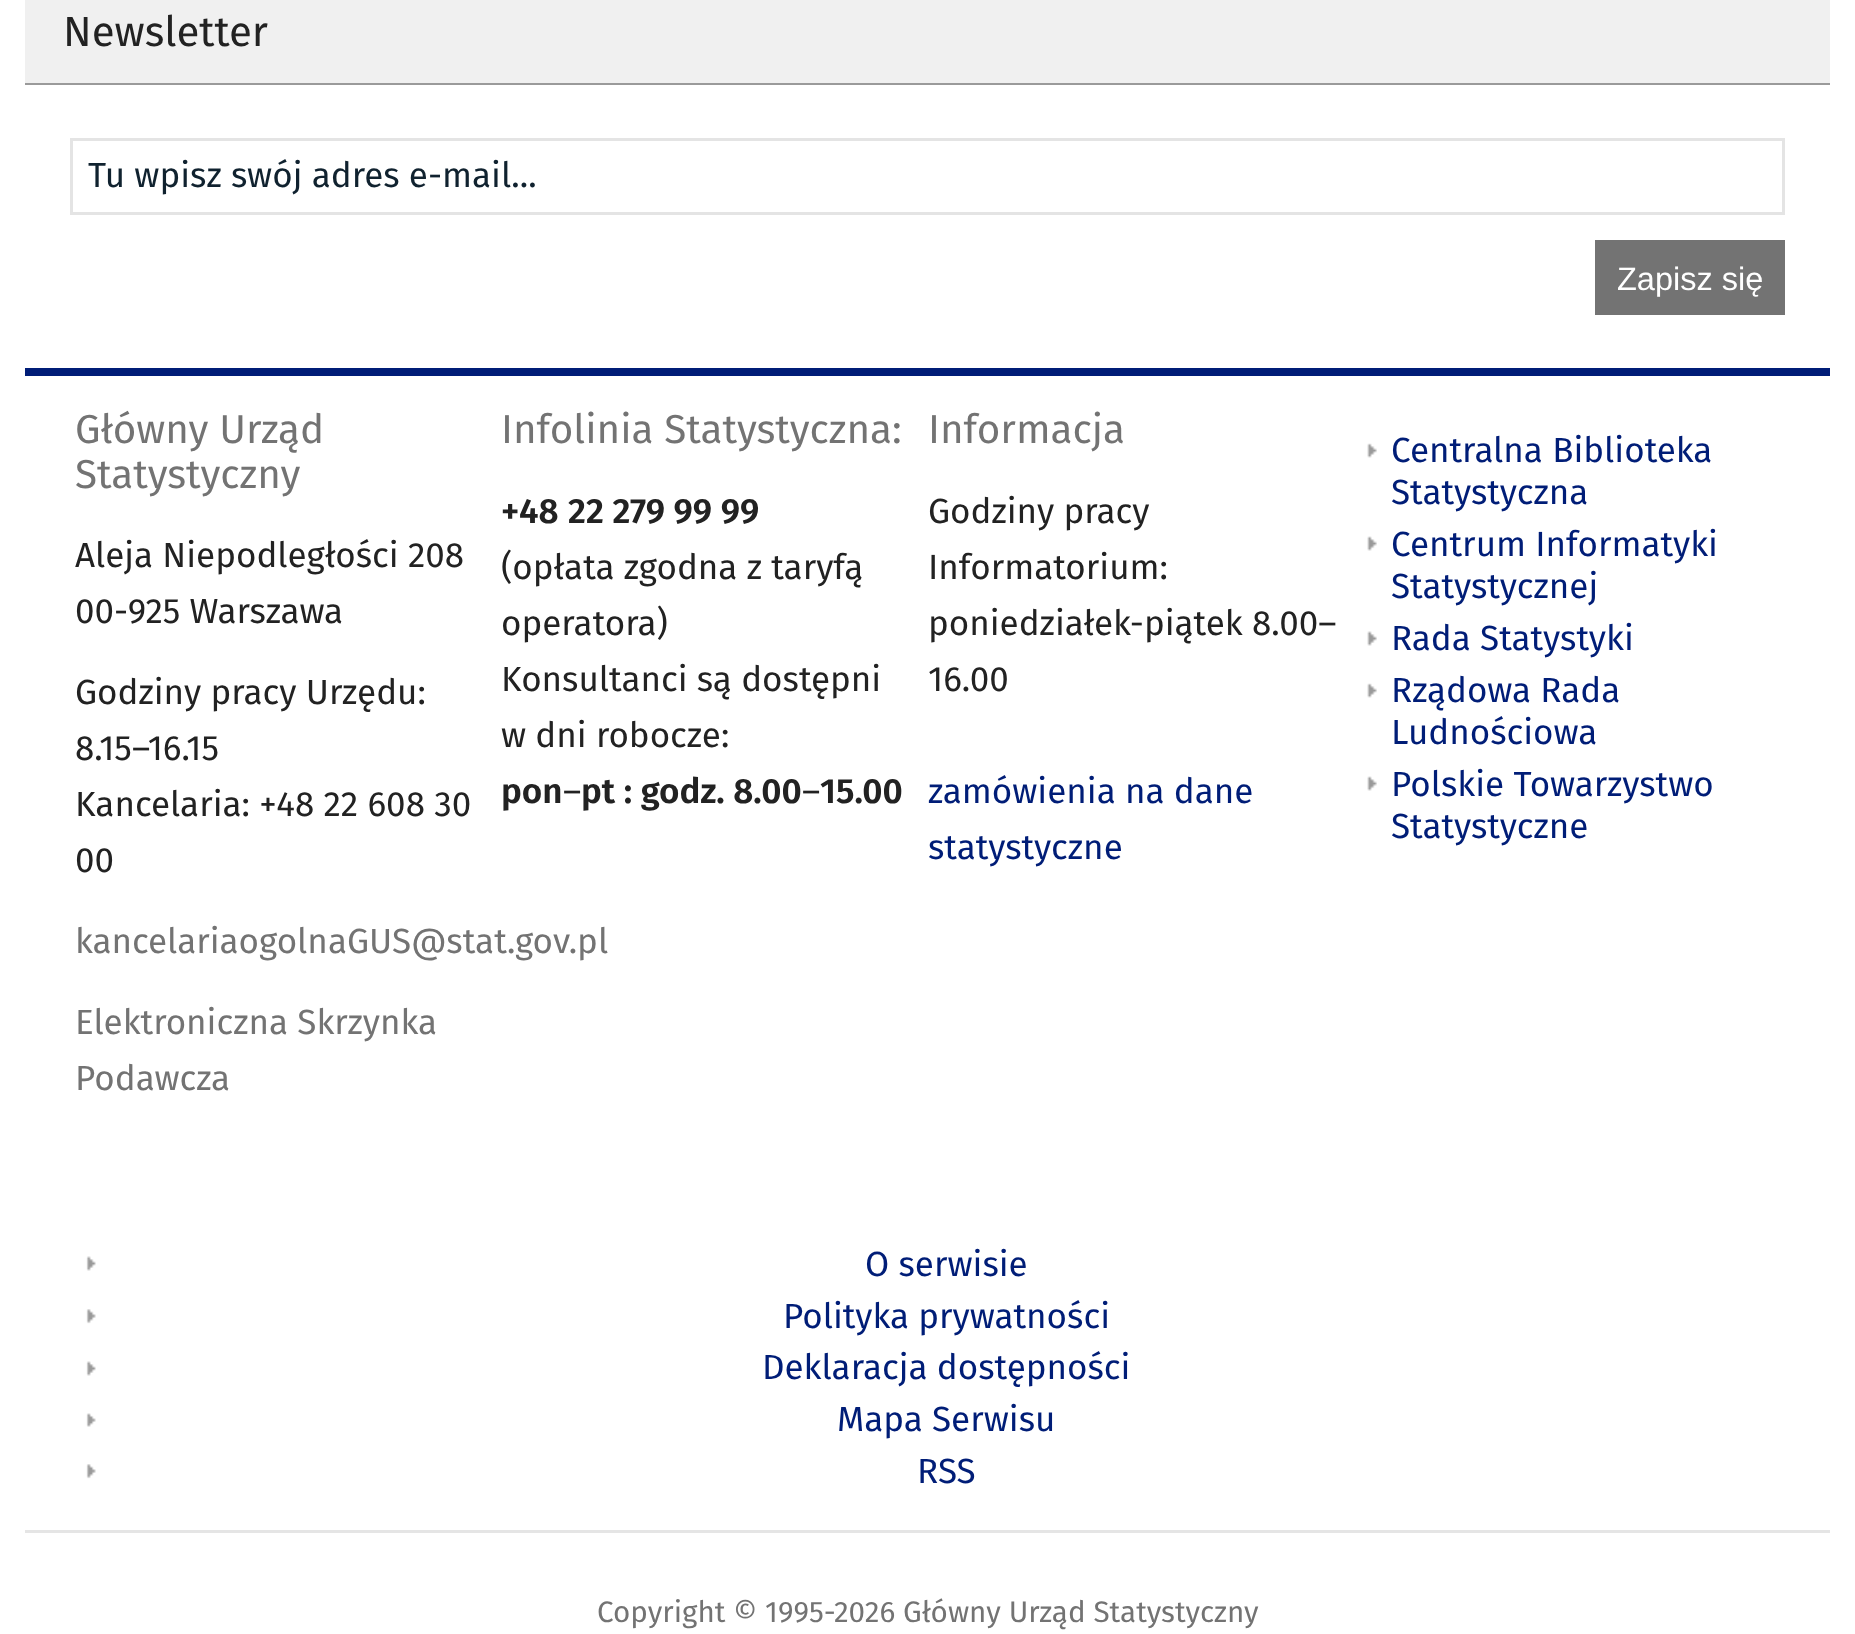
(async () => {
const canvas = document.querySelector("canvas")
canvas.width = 1855
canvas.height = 1634
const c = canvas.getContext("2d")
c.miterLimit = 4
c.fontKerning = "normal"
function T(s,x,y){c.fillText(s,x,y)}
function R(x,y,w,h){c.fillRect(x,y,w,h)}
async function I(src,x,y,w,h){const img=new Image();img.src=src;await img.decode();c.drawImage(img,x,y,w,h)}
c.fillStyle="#fff"
R(0,0,1855,1634)
c.fillStyle="#f0f0f0"
R(25,0,1805,83)
c.fillStyle="#9a9a9a"
R(25,83,1805,2)
c.font="42px Fira Sans"
c.fillStyle="#222"
T("Newsletter",63,46)
c.strokeStyle="#e4e4e4"
c.lineWidth=3
c.strokeRect(71.5,139.5,1712,74)
c.font="35px Fira Sans"
c.fillStyle="#10222f"
T("Tu wpisz swój adres e-mail...",88,187)
c.fillStyle="#737373"
R(1595,240,190,75)
c.font="32.5px Liberation Sans"
c.fillStyle="#fff"
T("Zapisz się",1617,290)
c.fillStyle="#001d77"
R(25,368,1805,8)
c.fillStyle="#e5e5e5"
R(25,1530,1805,3)
c.font="40.4px Fira Sans"
c.fillStyle="#737373"
T("Główny Urząd",75,443)
T("Statystyczny",75,488)
c.font="35px Fira Sans"
c.fillStyle="#222"
T("Aleja Niepodległości 208",75,567)
T("00-925 Warszawa",75,623)
T("Godziny pracy Urzędu:",75,704)
T("8.15–16.15",75,760)
T("Kancelaria: +48 22 608 30",75,816)
T("00",75,872)
c.fillStyle="#737373"
T("kancelariaogolnaGUS@stat.gov.pl",75,953)
T("Elektroniczna Skrzynka",75,1034)
T("Podawcza",75,1090)
c.font="40.4px Fira Sans"
T("Infolinia Statystyczna:",501,443)
c.font="600 35px Fira Sans"
c.fillStyle="#222"
T("+48",501,523)
T("22 279 99 99",568,523)
c.font="35px Fira Sans"
T("(opłata zgodna z taryfą",501,579)
T("operatora)",501,635)
T("Konsultanci są dostępni",501,691)
T("w dni robocze:",501,747)
c.font="600 35px Fira Sans"
T("pon",501,803)
c.font="35px Fira Sans"
T("–",563,803)
c.font="600 35px Fira Sans"
T("pt : godz. 8.00",581,803)
c.font="35px Fira Sans"
T("–",802,803)
c.font="600 35px Fira Sans"
T("15.00",820,803)
c.font="40.4px Fira Sans"
c.fillStyle="#737373"
T("Informacja",928,443)
c.font="35px Fira Sans"
c.fillStyle="#222"
T("Godziny pracy",928,523)
T("Informatorium:",928,579)
T("poniedziałek-piątek 8.00–",928,635)
T("16.00",928,691)
c.fillStyle="#001d77"
T("zamówienia na dane",928,803)
T("statystyczne",928,859)
await I("1.png",1367,443,10,15)
T("Centralna Biblioteka",1391,462)
T("Statystyczna",1391,504)
await I("2.png",1367,536,10,15)
T("Centrum Informatyki",1391,556)
T("Statystycznej",1391,598)
await I("3.png",1367,631,10,15)
T("Rada Statystyki",1391,650)
await I("1.png",1367,683,10,15)
T("Rządowa Rada",1391,702)
T("Ludnościowa",1391,744)
await I("2.png",1367,776,10,15)
T("Polskie Towarzystwo",1391,796)
T("Statystyczne",1391,838)
await I("4.png",86,1256,10,15)
T("O serwisie",865,1276)
await I("5.png",86,1309,10,15)
T("Polityka prywatności",783,1328)
await I("4.png",86,1361,10,15)
T("Deklaracja dostępności",762,1379)
await I("6.png",86,1413,10,14)
T("Mapa Serwisu",837,1431)
await I("5.png",86,1464,10,15)
T("RSS",917,1483)
c.font="29.6px Fira Sans"
c.fillStyle="#737373"
T("Copyright © 1995-2026 Główny Urząd Statystyczny",597,1622)
})()
